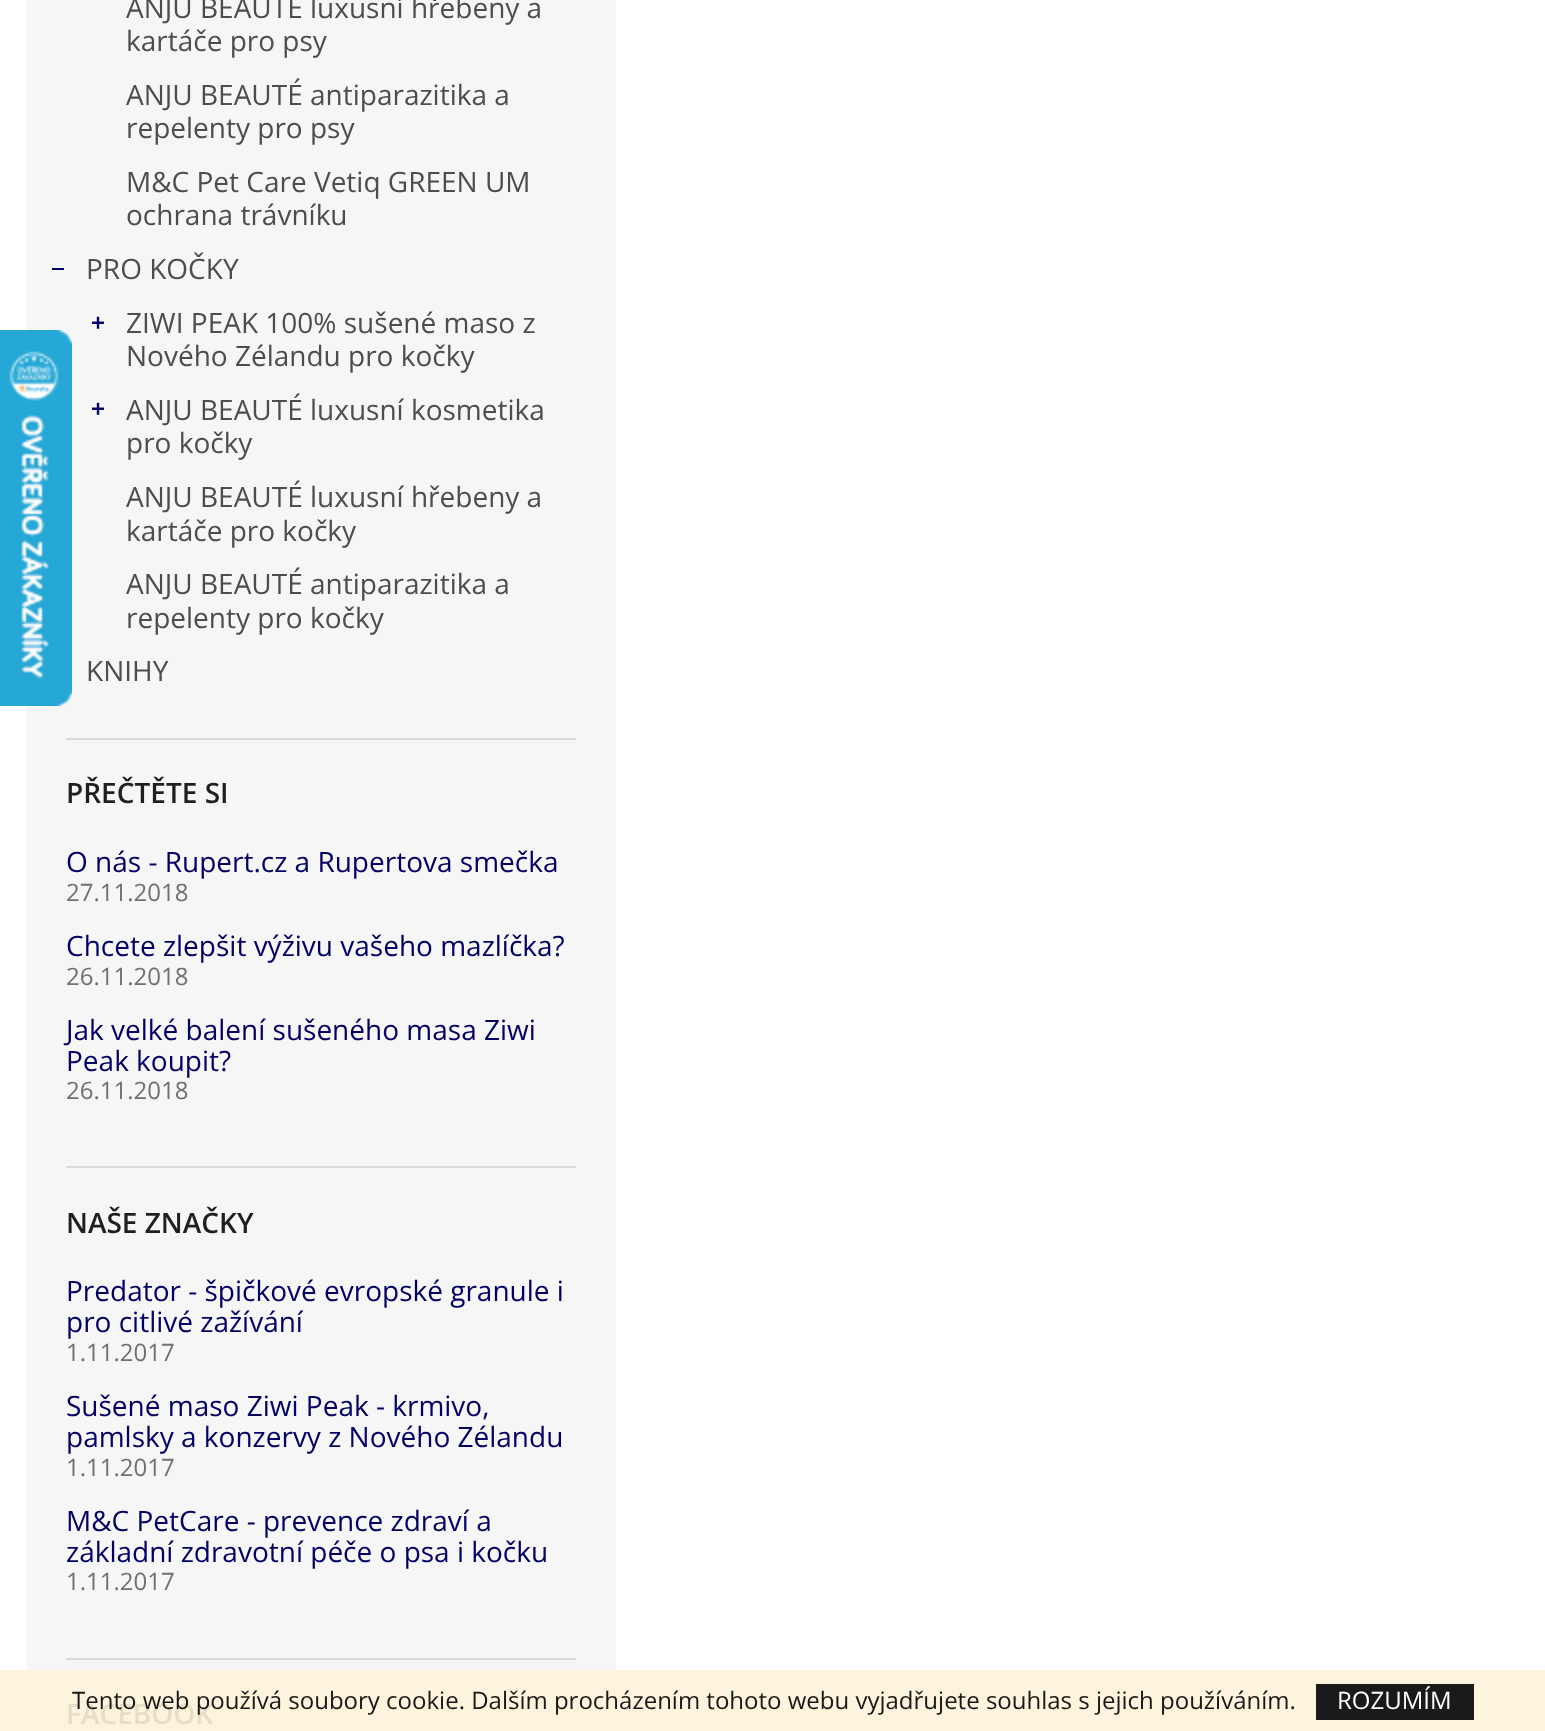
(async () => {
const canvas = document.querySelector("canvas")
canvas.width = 1545
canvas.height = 1731
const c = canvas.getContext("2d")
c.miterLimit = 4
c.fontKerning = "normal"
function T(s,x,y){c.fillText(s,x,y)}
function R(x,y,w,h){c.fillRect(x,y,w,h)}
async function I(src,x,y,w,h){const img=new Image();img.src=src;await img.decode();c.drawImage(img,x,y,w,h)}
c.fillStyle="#fff"
R(0,0,1545,1731)
c.fillStyle="#fdf4de"
R(0,1670,1545,61)
c.fillStyle="#f6f6f6"
R(26,0,590,1670)
await I("1.png",0,330,72,376)
c.fillStyle="#dadada"
R(66,738,510,2)
c.font="28px Open Sans"
c.fillStyle="#4d4d4d"
T("ANJU BEAUTÉ luxusní hřebeny a",126,18)
T("kartáče pro psy",126,51)
T("ANJU BEAUTÉ antiparazitika a",126,105)
T("repelenty pro psy",126,138)
T("M&C Pet Care Vetiq GREEN UM",126,192)
T("ochrana trávníku",126,225)
c.fillStyle="#010066"
R(52,268,12,2)
c.fillStyle="#4d4d4d"
T("PRO KOČKY",86,279)
await I("2.png",92,316,12,13)
T("ZIWI PEAK 100% sušené maso z",126,333)
T("Nového Zélandu pro kočky",126,366)
await I("2.png",92,402,12,13)
T("ANJU BEAUTÉ luxusní kosmetika",126,420)
T("pro kočky",126,453)
T("ANJU BEAUTÉ luxusní hřebeny a",126,507)
T("kartáče pro kočky",126,541)
T("ANJU BEAUTÉ antiparazitika a",126,594)
T("repelenty pro kočky",126,628)
T("KNIHY",86,681)
c.fillStyle="#dadada"
R(66,1166,510,2)
c.font="600 28px Open Sans"
c.fillStyle="#1f1f1f"
T("PŘEČTĚTE SI",66,803)
c.font="28px Open Sans"
c.fillStyle="#010066"
T("O nás - Rupert.cz a Rupertova smečka",66,872)
c.font="24px Open Sans"
c.fillStyle="#707070"
T("27.11.2018",66,901)
c.font="28px Open Sans"
c.fillStyle="#010066"
T("Chcete zlepšit výživu vašeho mazlíčka?",66,956)
c.font="24px Open Sans"
c.fillStyle="#707070"
T("26.11.2018",66,985)
c.font="28px Open Sans"
c.fillStyle="#010066"
T("Jak velké balení sušeného masa Ziwi",66,1040)
T("Peak koupit?",66,1071)
c.font="24px Open Sans"
c.fillStyle="#707070"
T("26.11.2018",66,1099)
c.fillStyle="#dadada"
R(66,1658,510,2)
c.font="600 28px Open Sans"
c.fillStyle="#1f1f1f"
T("NAŠE ZNAČKY",66,1233)
c.font="28px Open Sans"
c.fillStyle="#010066"
T("Predator - špičkové evropské granule i",66,1301)
T("pro citlivé zažívání",66,1332)
c.font="24px Open Sans"
c.fillStyle="#707070"
T("1.11.2017",66,1361)
c.font="28px Open Sans"
c.fillStyle="#010066"
T("Sušené maso Ziwi Peak - krmivo,",66,1416)
T("pamlsky a konzervy z Nového Zélandu",66,1447)
c.font="24px Open Sans"
c.fillStyle="#707070"
T("1.11.2017",66,1476)
c.font="28px Open Sans"
c.fillStyle="#010066"
T("M&C PetCare - prevence zdraví a",66,1531)
T("základní zdravotní péče o psa i kočku",66,1562)
c.font="24px Open Sans"
c.fillStyle="#707070"
T("1.11.2017",66,1590)
c.font="600 28px Open Sans"
c.fillStyle="#e7dec7"
T("FACEBOOK",66,1724)
c.font="24px Open Sans"
c.fillStyle="#191816"
T("Tento web používá soubory cookie. Dalším procházením tohoto webu vyjadřujete souhlas s jejich používáním.",72,1709)
c.fillStyle="#1a1a1a"
R(1316,1684,158,36)
c.fillStyle="#fff"
T("ROZUMÍM",1337,1709)
})()
